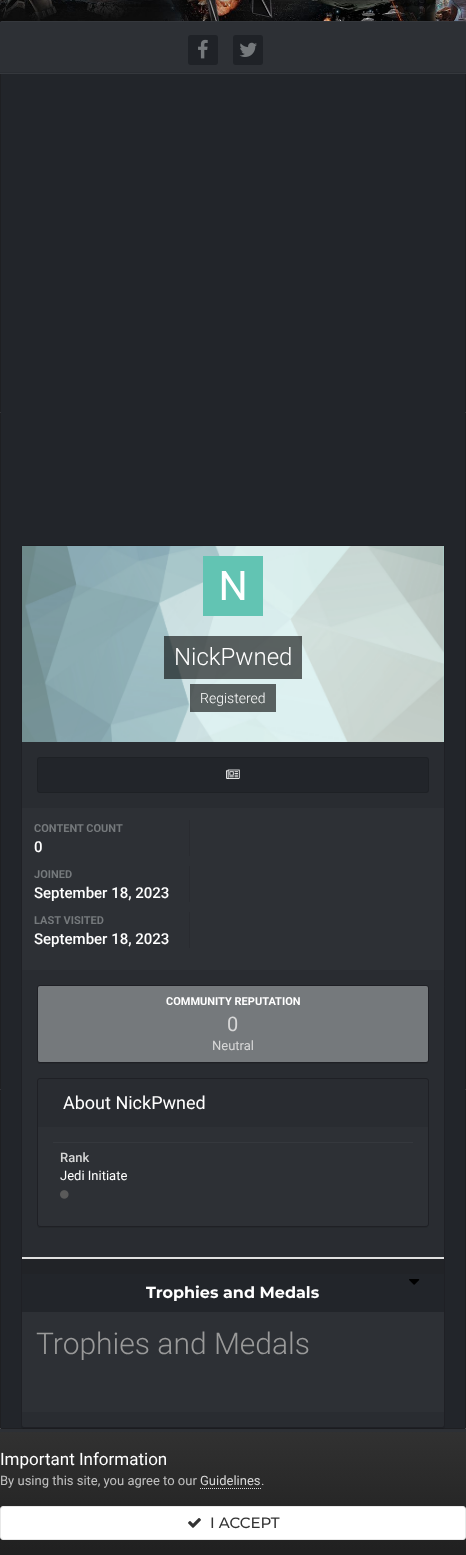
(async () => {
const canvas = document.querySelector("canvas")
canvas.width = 466
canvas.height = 1555
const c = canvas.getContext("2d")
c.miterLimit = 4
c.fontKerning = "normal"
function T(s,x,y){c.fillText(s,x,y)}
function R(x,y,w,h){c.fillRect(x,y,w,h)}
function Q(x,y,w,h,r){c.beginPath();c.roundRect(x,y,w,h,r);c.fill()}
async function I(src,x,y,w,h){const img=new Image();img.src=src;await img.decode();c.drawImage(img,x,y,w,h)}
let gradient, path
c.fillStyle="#fff"
R(0,0,466,1555)
await I("1.png",0,0,466,23)
await I("2.png",83,0,235,7)
c.fillStyle="#22252a"
c.beginPath()
c.rect(.5,73.5,465,1355)
c.fill()
c.strokeStyle="#1e1f22"
c.stroke()
c.fillStyle="#35383d"
R(0,73,466,1)
c.fillStyle="#2d3035"
c.beginPath()
c.roundRect(0,21,466,52,[2,2,0,0])
c.fill()
c.fillStyle="#35383d"
path = new Path2D("M2 21c-1 0-2 1-2 2l2-1h462c1 0 2 0 2 1c0-1-1-2-2-2z")
c.fill(path)
c.fillStyle="#292c31"
R(0,72,466,1)
c.fillStyle="#1f2227"
Q(188,35,30,30,3)
await I("3.png",198,39,10,20)
Q(233,35,30,30,3)
await I("4.png",239,42,18,15)
c.fillStyle="#1b1c1f"
path = new Path2D("M21 1425c0 2 1 4 3 4h418c2 0 3-2 3-4c0 2-1 3-3 3h-418c-2 0-3-1-3-3z")
c.fill(path)
c.fillStyle="#292c31"
c.beginPath()
c.roundRect(21.5,545.5,423,882,2.5)
c.fill()
c.strokeStyle="#1f2025"
c.stroke()
c.fillStyle="#99fffd"
R(22,546,422,196)
await I("5.png",22,546,422,196)
await I("6.png",203,556,60,60)
c.fillStyle="#00000099"
R(164,636,138,43)
c.font="300 24px Roboto"
c.fillStyle="#fff"
T("NickPwned",174,665)
c.fillStyle="#00000099"
R(190,684,86,28)
c.font="300 14px Roboto"
c.fillStyle="#fff"
T("Registered",200,703)
c.fillStyle="#22252a"
Q(37,757,392,36,3)
c.beginPath()
c.roundRect(37.5,757.5,391,35,2.5)
c.strokeStyle="#0000001a"
c.stroke()
await I("7.png",226,769,14,10)
c.fillStyle="#2d3035"
R(22,808,422,162)
c.fillStyle="#292b30"
R(189,820,1,36)
c.font="bold 11px Roboto"
c.fillStyle="#75797c"
T("CONTENT COUNT",34,832)
c.font="500 15px Roboto"
c.fillStyle="#fff"
T("0",34,852)
c.fillStyle="#292b30"
R(189,866,1,36)
c.font="bold 11px Roboto"
c.fillStyle="#75797c"
T("JOINED",34,878)
c.font="500 15px Roboto"
c.fillStyle="#fff"
T("September 18, 2023",34,898)
c.fillStyle="#292b30"
R(189,912,1,36)
c.font="bold 11px Roboto"
c.fillStyle="#75797c"
T("LAST VISITED",34,924)
c.font="500 15px Roboto"
c.fillStyle="#fff"
T("September 18, 2023",34,944)
c.fillStyle="#25282c"
path = new Path2D("M37 1060c0 2 1 4 3 4h386l2-1l1-3c0 2-1 3-3 3h-386c-2 0-3-1-3-3z")
c.fill(path)
c.beginPath()
c.roundRect(37.5,985.5,391,77,2.5)
c.strokeStyle="#1f2025"
c.stroke()
c.fillStyle="#75797c"
Q(38,986,390,76,2)
c.font="bold 11px Roboto"
c.fillStyle="#fff"
T("COMMUNITY REPUTATION",166,1005)
c.font="20px Roboto"
c.fillStyle="#d7d7d7"
T("0",227,1031)
c.font="13px Roboto"
T("Neutral",212,1050)
c.fillStyle="#25282c"
path = new Path2D("M37 1224c0 2 1 4 3 4h386l2-1l1-3c0 2-1 3-3 3h-386c-2 0-3-1-3-3z")
c.fill(path)
c.beginPath()
c.roundRect(37.5,1078.5,391,148,2.5)
c.stroke()
c.font="18px Roboto"
c.fillStyle="#fff"
T("About NickPwned",63,1109)
c.fillStyle="#2d3035"
c.beginPath()
c.roundRect(38,1127,390,99,[0,0,3,3])
c.fill()
c.fillStyle="#35383d"
R(53,1142,360,1)
c.font="500 13px Roboto"
c.fillStyle="#d7d7d7"
T("Rank",60,1162)
c.font="13px Roboto"
c.fillStyle="#fff"
T("Jedi Initiate",60,1180)
await I("8.png",60,1190,9,9)
c.fillStyle="#212327"
R(22,1259,422,15)
c.fillStyle="#e0e0e0"
R(22,1257,422,2)
c.fillStyle="#22252a"
R(22,1274,422,38)
await I("9.png",409,1279,11,6)
c.font="bold 16px Montserrat"
c.fillStyle="#fff"
T("Trophies and Medals",146,1298)
c.fillStyle="#2d3035"
R(22,1312,422,100)
c.font="300 30px Roboto"
c.fillStyle="#9a9a9a"
T("Trophies and Medals",36,1354)
c.fillStyle="#2d3035"
R(0,1429,466,3)
gradient = c.createLinearGradient(233,1432,233,1555)
gradient.addColorStop(0,"#313131")
gradient.addColorStop(1,"#202020")
c.fillStyle = gradient
R(0,1432,466,123)
c.font="17px Roboto"
c.fillStyle="#fff"
T("Important Information",0,1465)
c.font="13px Roboto"
c.fillStyle="#c0c0c0"
T("By using this site, you agree to our",0,1485)
c.fillStyle="#d7d7d7"
T("Guidelines",200,1485)
path = new Path2D("M200 1488.5h61")
c.strokeStyle="#dadada"
c.setLineDash([1,1])
c.stroke(path)
c.fillStyle="#c0c0c0"
T(".",261,1485)
c.fillStyle="#fff"
c.beginPath()
c.roundRect(.5,1506.5,465,33,2.5)
c.fill()
c.strokeStyle="#e8e8e8"
c.setLineDash([])
c.stroke()
await I("10.png",188,1518,13,10)
c.font="500 15px Montserrat"
c.fillStyle="#333"
T("I ACCEPT",210,1528)
})()
